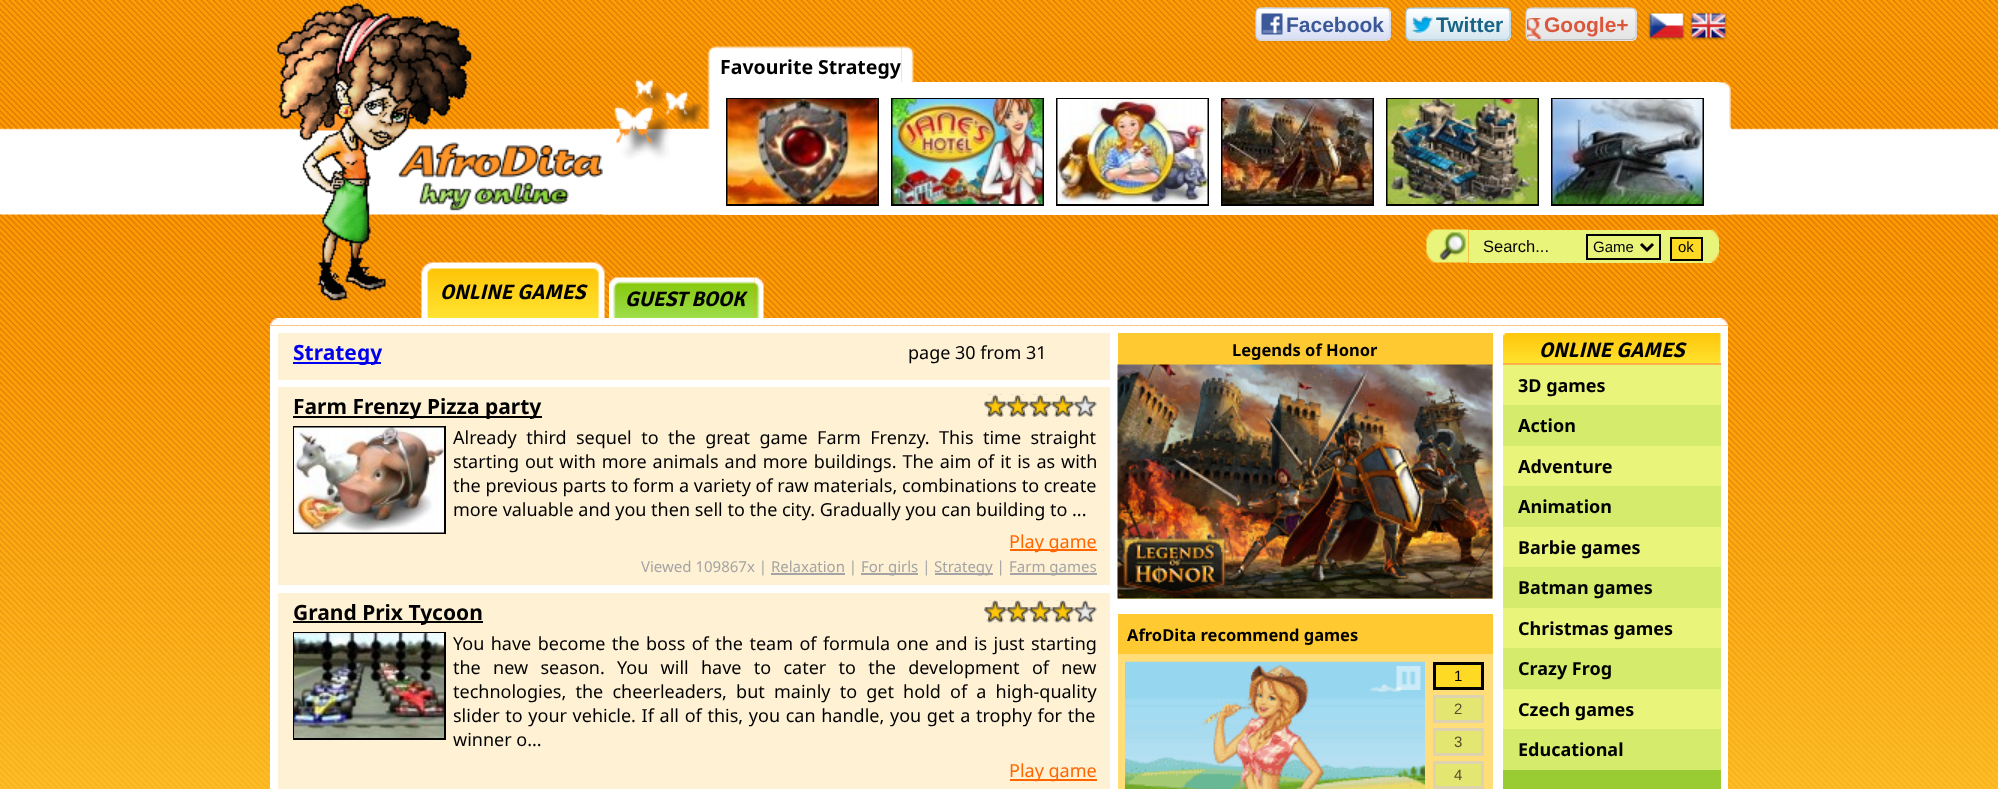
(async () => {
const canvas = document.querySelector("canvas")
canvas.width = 1998
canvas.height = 789
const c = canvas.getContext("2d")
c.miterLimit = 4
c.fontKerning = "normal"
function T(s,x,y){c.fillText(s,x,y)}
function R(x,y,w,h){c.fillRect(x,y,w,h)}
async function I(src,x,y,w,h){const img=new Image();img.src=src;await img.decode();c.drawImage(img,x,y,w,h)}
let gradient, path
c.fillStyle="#fff"
R(0,0,1998,789)
await I("1.png",0,0,1998,789)
await I("2.png",275,2,328,300)
c.fillStyle="#0000000d"
c.filter="blur(1px)"
c.beginPath()
c.roundRect(1256,9,135,33,5)
c.fill()
c.filter="none"
c.save()
c.beginPath()
c.roundRect(1256,8,135,33,5)
c.clip()
gradient = c.createLinearGradient(1323,-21,1323,9)
gradient.addColorStop(0,"#fff")
gradient.addColorStop(1,"#d8def4")
c.fillStyle = gradient
R(1256,8,135,1)
gradient = c.createLinearGradient(1323,9,1323,39)
gradient.addColorStop(0,"#fff")
gradient.addColorStop(1,"#d8def4")
c.fillStyle = gradient
R(1256,9,135,30)
gradient = c.createLinearGradient(1323,39,1323,69)
gradient.addColorStop(0,"#fff")
gradient.addColorStop(1,"#d8def4")
c.fillStyle = gradient
R(1256,39,135,2)
c.restore()
path = new Path2D("M1388.5 38.5c-.5 1-1.5 1.5-2.5 1.5h-126c-1 0-2-.5-2.5-1.5")
c.strokeStyle="#bdc2cbcc"
c.lineWidth=1.5
c.stroke(path)
path = new Path2D("M1257.5 38.5c-2.5-2.5-1.5-7.5-1.5-10.5c0-25-3.5-20 25-20h84c28.5 0 25-5 25 20c0 3 1 8-1.5 10.5")
c.strokeStyle="#cad4e7cc"
c.stroke(path)
await I("3.png",1261,13,22,22)
c.font="bold 21px Liberation Sans"
c.fillStyle="#3b5998"
T("Facebook",1286,32)
c.fillStyle="#0000000d"
c.filter="blur(1px)"
c.beginPath()
c.roundRect(1406,9,105,33,5)
c.fill()
c.filter="none"
c.save()
c.beginPath()
c.roundRect(1406,8,105,33,5)
c.clip()
gradient = c.createLinearGradient(1458,-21,1458,9)
gradient.addColorStop(0,"#fff")
gradient.addColorStop(1,"#d5e6ef")
c.fillStyle = gradient
R(1406,8,105,1)
gradient = c.createLinearGradient(1458,9,1458,39)
gradient.addColorStop(0,"#fff")
gradient.addColorStop(1,"#d5e6ef")
c.fillStyle = gradient
R(1406,9,105,30)
gradient = c.createLinearGradient(1458,39,1458,69)
gradient.addColorStop(0,"#fff")
gradient.addColorStop(1,"#d5e6ef")
c.fillStyle = gradient
R(1406,39,105,2)
c.restore()
path = new Path2D("M1508.5 38.5c-.5 1-1.5 1.5-2.5 1.5h-96c-1 0-2-.5-2.5-1.5")
c.strokeStyle="#9ebacccc"
c.stroke(path)
path = new Path2D("M1407.5 38.5c-2.5-2.5-1.5-7.5-1.5-10.5c0-23-4-20 20-20h64c24 0 20-3 20 20c0 3 1 8-1.5 10.5")
c.strokeStyle="#a4cce5cc"
c.stroke(path)
await I("4.png",1411,16,22,17)
c.fillStyle="#186487"
T("Twitter",1436,32)
c.fillStyle="#0000000d"
c.filter="blur(1px)"
c.beginPath()
c.roundRect(1526,9,111,33,5)
c.fill()
c.filter="none"
c.save()
c.beginPath()
c.roundRect(1526,8,111,33,5)
c.clip()
gradient = c.createLinearGradient(1581,-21,1581,9)
gradient.addColorStop(0,"#f5f5f5")
gradient.addColorStop(1,"#e4e4e4")
c.fillStyle = gradient
R(1526,8,111,1)
gradient = c.createLinearGradient(1581,9,1581,39)
gradient.addColorStop(0,"#f5f5f5")
gradient.addColorStop(1,"#e4e4e4")
c.fillStyle = gradient
R(1526,9,111,30)
gradient = c.createLinearGradient(1581,39,1581,69)
gradient.addColorStop(0,"#f5f5f5")
gradient.addColorStop(1,"#e4e4e4")
c.fillStyle = gradient
R(1526,39,111,2)
c.restore()
path = new Path2D("M1634.5 38.5l-2 1l-85.5 .5h-17l-2.5-1.5")
c.strokeStyle="#b3b3b3cc"
c.stroke(path)
path = new Path2D("M1527.5 38.5c-2.5-2.5-1.5-7.5-1.5-10.5c0-23.5-3.5-20 21-20h68c24.5 0 21-3.5 21 20c0 3 1 8-1.5 10.5")
c.strokeStyle="#cccccccc"
c.stroke(path)
await I("5.png",1527,18,15,21)
c.fillStyle="#da573b"
T("Google+",1544,32)
await I("6.png",1648,12,37,29)
await I("7.png",1690,12,37,29)
await I("8.png",603,46,117,169)
c.fillStyle="#fff"
R(720,82,999,133)
await I("9.png",720,46,182,36)
c.font="bold 19.5px Noto Sans"
c.fillStyle="#000"
T("Favourite Strategy",720,74)
await I("10.png",901,46,13,37)
c.strokeStyle="#000"
c.lineWidth=2
c.strokeRect(727,99,151,106)
await I("11.png",727,99,151,105)
c.strokeRect(892,99,151,106)
await I("12.png",892,99,151,105)
c.strokeRect(1057,99,151,106)
await I("13.png",1057,99,151,105)
c.strokeRect(1222,99,151,106)
await I("14.png",1222,99,151,105)
c.strokeRect(1387,99,151,106)
await I("15.png",1387,99,151,105)
c.strokeRect(1552,99,151,106)
await I("16.png",1552,99,151,105)
await I("17.png",1719,82,12,133)
await I("18.png",1426,229,43,34)
c.fillStyle="#e9f47b"
R(1469,230,243,33)
c.font="16.5px Liberation Sans"
c.fillStyle="#000"
T("Search...",1483,252)
c.strokeRect(1587,235,73,24)
path = new Path2D("M1641 244l6 6l6-6")
c.lineWidth=3
c.stroke(path)
c.font="15px Liberation Sans"
T("Game",1593,252)
c.fillStyle="#ffda24"
c.beginPath()
c.rect(1671,238,31,22)
c.fill()
c.lineWidth=2
c.stroke()
c.fillStyle="#000"
T("ok",1678,252)
await I("19.png",1711,229,8,34)
await I("20.png",421,262,11,56)
await I("21.png",432,262,162,56)
c.font="italic 300 21px Signika Negative"
T("ONLINE GAMES",440,299)
await I("22.png",594,262,11,56)
await I("23.png",609,277,9,41)
await I("24.png",618,277,137,41)
T("GUEST BOOK",625,306)
await I("25.png",754,277,10,41)
await I("26.png",270,318,1458,8)
c.fillStyle="#fff"
R(270,326,1458,463)
c.fillStyle="#fff1d4"
R(278,333,832,47)
c.fillStyle="#00e"
R(293,362,88,2)
c.font="bold 21px Noto Sans"
T("Strategy",293,360)
c.font="18px Noto Sans"
c.fillStyle="#000"
T("page 30 from 31",908,359)
c.fillStyle="#fff1d4"
R(278,387,832,198)
c.fillStyle="#000"
R(293,416,249,2)
c.font="bold 21px Noto Sans"
T("Farm Frenzy Pizza party",293,414)
await I("27.png",984,394,113,23)
await I("28.png",984,394,90,23)
c.strokeRect(294,427,151,106)
await I("29.png",294,427,150,106)
c.wordSpacing="4.75px"
c.font="18px Noto Sans"
T("Already third sequel to the great game Farm Frenzy. This time straight",453,444)
c.wordSpacing="1.25px"
T("starting out with more animals and more buildings. The aim of it is as with",453,468)
c.wordSpacing="0px"
T("the previous parts to form a variety of raw materials, combinations to create",453,492)
T("more valuable and you then sell to the city. Gradually you can building to ...",453,516)
c.fillStyle="#f60"
R(1010,549,87,2)
T("Play game",1009,548)
c.font="15px Noto Sans"
c.fillStyle="#a4a4a4"
T("Viewed 109867x | Relaxation |",641,572)
R(861,573,57,2)
T("For girls |",861,572)
R(935,573,58,2)
T("Strategy |",934,572)
R(1010,573,87,2)
T("Farm games",1009,572)
R(771,573,74,2)
c.fillStyle="#fff1d4"
R(278,593,832,196)
c.fillStyle="#000"
R(293,621,190,2)
c.font="bold 21px Noto Sans"
T("Grand Prix Tycoon",293,620)
await I("30.png",984,600,113,23)
await I("31.png",984,600,90,23)
c.strokeRect(294,633,151,106)
await I("32.png",294,633,150,105)
c.wordSpacing="1.75px"
c.font="18px Noto Sans"
T("You have become the boss of the team of formula one and is just starting",453,650)
c.wordSpacing="7.6px"
T("the new season. You will have to cater to the development of new",453,674)
c.wordSpacing="4.5px"
T("technologies, the cheerleaders, but mainly to get hold of a high-quality",453,698)
c.wordSpacing="1px"
T("slider to your vehicle. If all of this, you can handle, you get a trophy for the",453,722)
c.wordSpacing="0px"
T("winner o...",453,746)
c.fillStyle="#f60"
R(1010,779,87,2)
T("Play game",1009,777)
c.fillStyle="#ffdd78"
R(1118,365,375,234)
c.fillStyle="#ffca31"
R(1118,333,375,32)
c.font="bold 16.5px Noto Sans"
c.fillStyle="#000"
T("Legends of Honor",1232,356)
await I("33.png",1117,364,376,235)
c.fillStyle="#ffdd78"
R(1118,654,375,135)
c.fillStyle="#ffca31"
R(1118,614,375,40)
c.fillStyle="#000"
T("AfroDita recommend games",1127,641)
await I("34.png",1125,661,300,128)
await I("35.png",1396,666,25,24)
c.fillStyle="#ffda24"
c.beginPath()
c.rect(1434.5,663.5,48,25)
c.fill()
c.lineWidth=3
c.stroke()
c.font="15px Liberation Sans"
c.fillStyle="#000"
T("1",1454,681)
c.fillStyle="#e3e670"
c.beginPath()
c.rect(1434.5,696.5,48,25)
c.fill()
c.strokeStyle="#ded2af"
c.stroke()
c.fillStyle="#594d2a"
T("2",1454,714)
c.fillStyle="#e3e670"
c.beginPath()
c.rect(1434.5,729.5,48,25)
c.fill()
c.stroke()
c.fillStyle="#594d2a"
T("3",1454,747)
c.fillStyle="#e3e670"
c.beginPath()
c.rect(1434.5,762.5,48,25)
c.fill()
c.stroke()
c.fillStyle="#594d2a"
T("4",1454,780)
await I("36.png",1503,333,218,30)
c.fillStyle="#ffb048"
R(1503,363,218,2)
c.font="italic 300 21px Signika Negative"
c.fillStyle="#000"
T("ONLINE GAMES",1539,357)
c.fillStyle="#e9f47b"
R(1503,365,218,40)
c.font="bold 18px Noto Sans"
c.fillStyle="#000"
T("3D games",1518,392)
c.fillStyle="#d4eb6b"
R(1503,405,218,41)
c.fillStyle="#000"
T("Action",1518,432)
c.fillStyle="#e9f47b"
R(1503,446,218,40)
c.fillStyle="#000"
T("Adventure",1518,473)
c.fillStyle="#d4eb6b"
R(1503,486,218,41)
c.fillStyle="#000"
T("Animation",1518,513)
c.fillStyle="#e9f47b"
R(1503,527,218,40)
c.fillStyle="#000"
T("Barbie games",1518,554)
c.fillStyle="#d4eb6b"
R(1503,567,218,41)
c.fillStyle="#000"
T("Batman games",1518,594)
c.fillStyle="#e9f47b"
R(1503,608,218,40)
c.fillStyle="#000"
T("Christmas games",1518,635)
c.fillStyle="#d4eb6b"
R(1503,648,218,41)
c.fillStyle="#000"
T("Crazy Frog",1518,675)
c.fillStyle="#e9f47b"
R(1503,689,218,40)
c.fillStyle="#000"
T("Czech games",1518,716)
c.fillStyle="#d4eb6b"
R(1503,729,218,41)
c.fillStyle="#000"
T("Educational",1518,756)
c.fillStyle="#9c3"
R(1503,770,218,19)
})()
